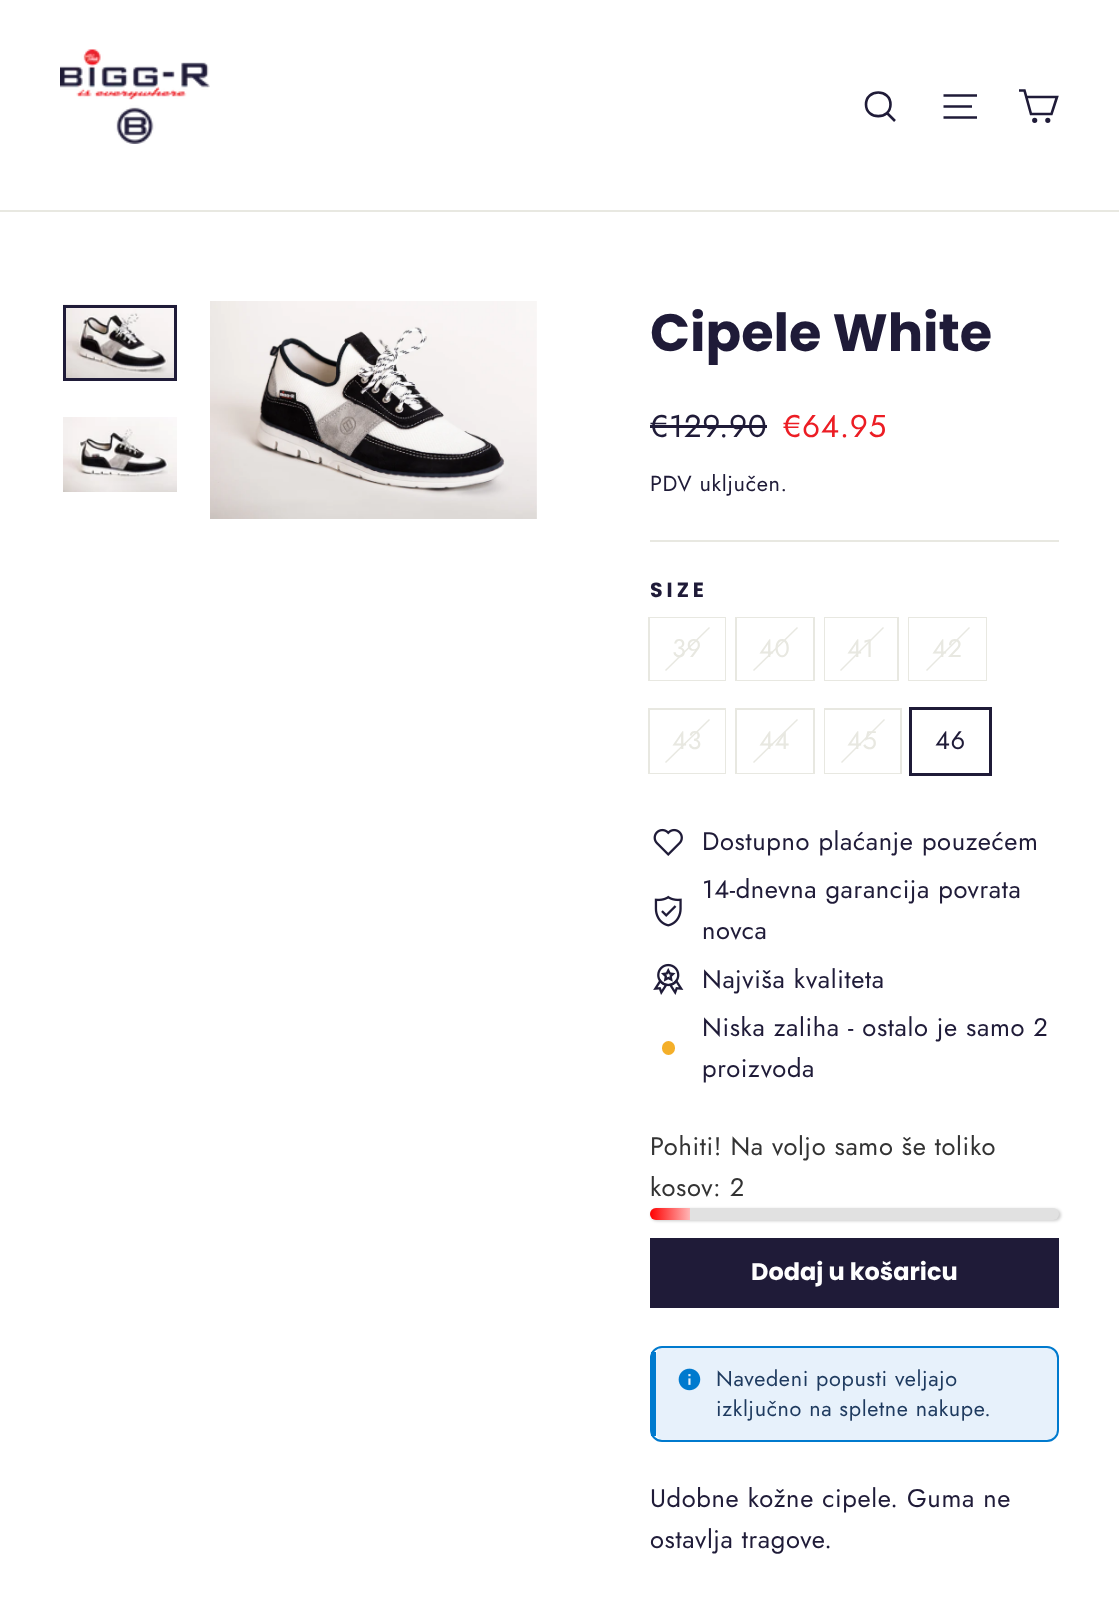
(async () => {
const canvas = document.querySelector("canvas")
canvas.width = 1119
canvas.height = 1613
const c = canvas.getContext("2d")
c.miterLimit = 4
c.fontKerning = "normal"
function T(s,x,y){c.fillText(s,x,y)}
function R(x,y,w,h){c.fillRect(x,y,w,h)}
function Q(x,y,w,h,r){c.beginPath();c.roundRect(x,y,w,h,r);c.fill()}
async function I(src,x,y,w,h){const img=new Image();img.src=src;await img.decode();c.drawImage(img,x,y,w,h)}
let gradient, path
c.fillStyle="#fff"
R(0,0,1119,1613)
c.fillStyle="#e8e8e1"
R(0,210,1119,2)
await I("1.png",60,49,150,95)
path = new Path2D("M890.5 104.5c0 15.5-24.5 15.5-24.5 0c0-16 24.5-16 24.5 0zm4.5 16.5l-8-8")
c.strokeStyle="#1f1b38"
c.lineWidth=2.6
c.stroke(path)
path = new Path2D("M943.5 95.5h33.5m-33.5 11h28.5m-28.5 11h33.5")
c.stroke(path)
path = new Path2D("M1026 97h31l-5.5 17h-20.5l-6.5-23.5h-5.5")
c.stroke(path)
c.beginPath()
c.arc(1034.7,120.3,1.3,0,7)
c.stroke()
c.beginPath()
c.arc(1047.8,120.3,1.3,0,7)
c.stroke()
await I("2.png",63,304,114,74)
c.lineWidth=3
c.strokeRect(64.5,306.5,111,73)
await I("3.png",63,417,114,75)
await I("4.png",210,301,327,218)
c.font="bold 52.5px Poppins"
c.fillStyle="#1f1b38"
T("Cipele White",650,351)
c.letterSpacing="0.65px"
c.font="31.5px Jost"
T("€129.90",650,437)
R(650,425,117,3)
c.fillStyle="#ec1d24"
T("€64.95",783,437)
c.font="21.75px Jost"
c.fillStyle="#1f1b38"
T("PDV uključen.",650,491)
c.fillStyle="#e8e8e1"
R(650,540,409,2)
c.letterSpacing="4px"
c.font="bold 20.5px Poppins"
c.fillStyle="#1f1b38"
T("SIZE",650,597)
c.strokeStyle="#e8e8e1"
c.lineWidth=2
c.strokeRect(649,618,76,62)
c.fillStyle="#fff"
R(650,618,75,62)
c.fillStyle="#e8e8e1"
path = new Path2D("M709 627l1 1l-44 43l-1-1z")
c.fill(path)
c.letterSpacing="0.65px"
c.font="25.5px Jost"
T("39",672,657)
c.strokeRect(736,618,78,62)
c.fillStyle="#fff"
R(737,618,76,62)
c.fillStyle="#e8e8e1"
path = new Path2D("M797 627l1 1l-44 43l-1-1z")
c.fill(path)
T("40",759,657)
c.strokeRect(825,618,73,62)
c.fillStyle="#fff"
R(825,618,72,62)
c.fillStyle="#e8e8e1"
path = new Path2D("M883 627l1 1l-43 43l-1-1z")
c.fill(path)
T("41",847,657)
c.strokeRect(909,618,77,62)
c.fillStyle="#fff"
R(909,618,77,62)
c.fillStyle="#e8e8e1"
path = new Path2D("M969 627l1 1l-43 43l-1-1z")
c.fill(path)
T("42",932,657)
c.strokeRect(649,709,76,64)
c.fillStyle="#fff"
R(650,710,75,63)
c.fillStyle="#e8e8e1"
path = new Path2D("M709 719l1 1l-44 43l-1-1z")
c.fill(path)
T("43",672,749)
c.strokeRect(736,709,78,64)
c.fillStyle="#fff"
R(737,772,76,1)
c.fillStyle="#e8e8e1"
path = new Path2D("M797 719l1 1l-44 43l-1-1z")
c.fill(path)
T("44",759,749)
c.strokeRect(825,709,76,64)
c.fillStyle="#fff"
R(825,710,75,63)
c.fillStyle="#e8e8e1"
path = new Path2D("M884 719l1 1l-43 43l-1-1z")
c.fill(path)
T("45",847,749)
c.strokeStyle="#1f1b38"
c.lineWidth=3
c.strokeRect(910.5,708.5,80,66)
c.fillStyle="#1f1b38"
T("46",935,749)
await I("5.png",653,828,30,28)
T("Dostupno plaćanje pouzećem",702,850)
await I("6.png",654,895,28,32)
T("14-dnevna garancija povrata",702,898)
T("novca",702,939)
await I("7.png",653,963,31,32)
T("Najviša kvaliteta",702,988)
c.fillStyle="#f4af29"
Q(662,1041,13,14,6.5)
c.fillStyle="#1f1b38"
T("Niska zaliha - ostalo je samo 2",702,1036)
T("proizvoda",702,1077)
c.fillStyle="#333"
T("Pohiti! Na voljo samo še toliko",650,1155)
T("kosov: 2",650,1196)
c.fillStyle="#00000033"
c.filter="blur(1.5px)"
c.beginPath()
c.roundRect(651,1209,410,12,6)
c.fill()
c.filter="none"
c.fillStyle="#e1e1e1"
Q(650,1208,409,12,6)
gradient = c.createLinearGradient(650,1214,690,1214)
gradient.addColorStop(0,"#f00")
gradient.addColorStop(1,"#ffb6b6")
c.fillStyle = gradient
c.beginPath()
c.roundRect(650,1208,40,12,[6,0,0,6])
c.fill()
c.fillStyle="#1f1b38"
R(650,1238,409,70)
c.letterSpacing="0px"
c.font="bold 24px Poppins"
c.fillStyle="#fff"
T("Dodaj u košaricu",751,1280)
c.fillStyle="#e7f1fb"
path = new Path2D("M662 1347h385c6 0 11 5 11 11v72c0 5-5 10-11 10h-385c-4 0-6-5-6-10v-72c0-6 2-11 6-11z")
c.fill(path)
c.beginPath()
c.roundRect(651,1347,407,94,11)
c.strokeStyle="#007ace"
c.lineWidth=2
c.stroke()
c.fillStyle="#007ace"
R(651,1352,5,84)
await I("8.png",678,1368,23,23)
c.letterSpacing="0.65px"
c.font="21.6px Jost"
c.fillStyle="#1e3a5f"
T("Navedeni popusti veljajo",716,1386)
T("izključno na spletne nakupe.",716,1416)
c.font="25.5px Jost"
c.fillStyle="#1f1b38"
T("Udobne kožne cipele. Guma ne",650,1507)
T("ostavlja tragove.",650,1548)
})()
